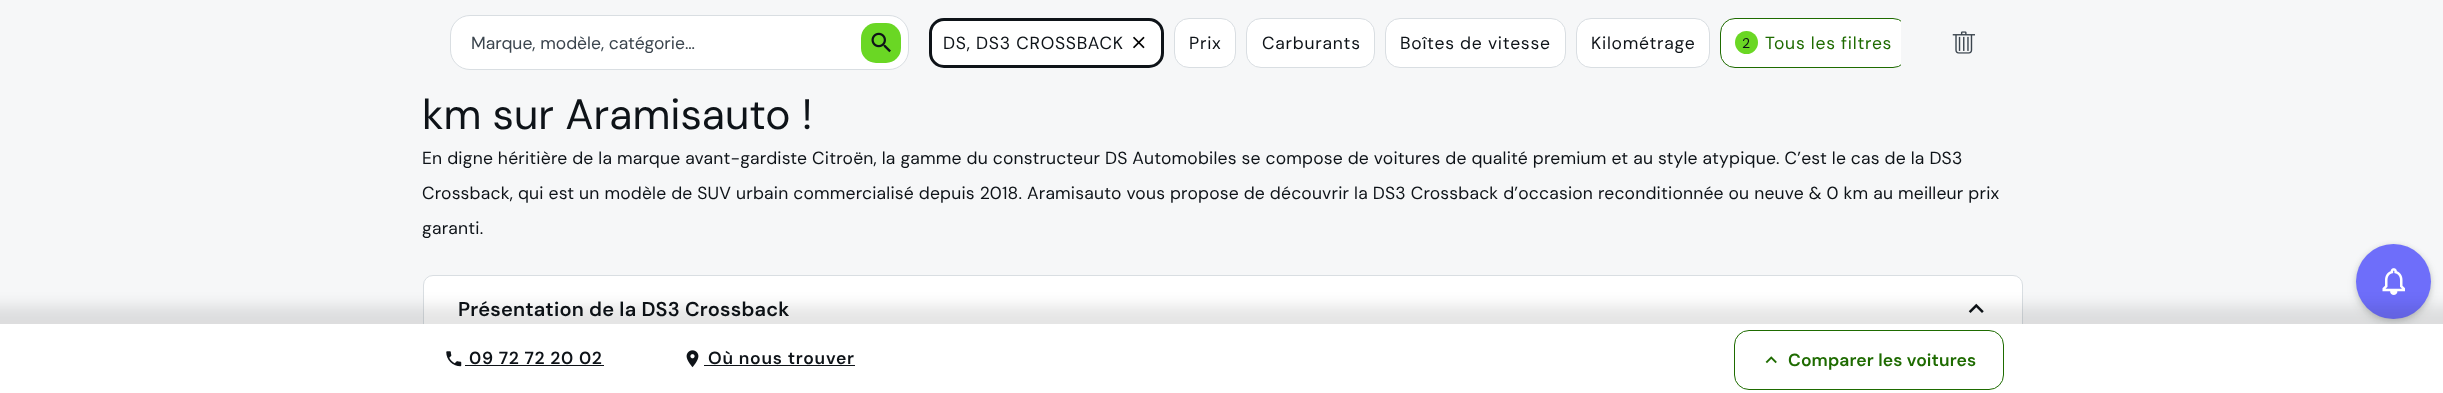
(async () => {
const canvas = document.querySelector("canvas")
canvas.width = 2443
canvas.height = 393
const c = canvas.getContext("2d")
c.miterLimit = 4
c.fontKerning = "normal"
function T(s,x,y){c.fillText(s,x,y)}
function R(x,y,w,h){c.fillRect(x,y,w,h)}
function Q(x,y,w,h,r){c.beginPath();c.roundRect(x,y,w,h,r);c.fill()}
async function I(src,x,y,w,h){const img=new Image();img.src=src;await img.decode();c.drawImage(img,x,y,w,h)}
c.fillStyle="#f6f7f8"
R(0,0,2443,393)
c.fillStyle="#fff"
c.beginPath()
c.roundRect(450.5,15.5,458,54,19.5)
c.fill()
c.strokeStyle="#d9dee2"
c.stroke()
c.font="17.5px DM Sans"
c.fillStyle="#3b454e"
T("Marque, modèle, catégorie…",471,49)
c.fillStyle="#6ad724"
Q(861,23,40,40,15)
await I("1.png",871,32,20,21)
c.fillStyle="#fff"
c.beginPath()
c.roundRect(930.5,19.5,232,47,13.5)
c.fill()
c.strokeStyle="#0e1318"
c.lineWidth=3
c.stroke()
c.letterSpacing="0.75px"
c.fillStyle="#0e1318"
T("DS, DS3 CROSSBACK",943,49)
await I("2.png",1133,36,12,13)
c.fillStyle="#fff"
c.beginPath()
c.roundRect(1174.5,18.5,61,49,14.5)
c.fill()
c.strokeStyle="#d9dee2"
c.lineWidth=1
c.stroke()
c.fillStyle="#0e1318"
T("Prix",1189,49)
c.fillStyle="#fff"
c.beginPath()
c.roundRect(1246.5,18.5,128,49,14.5)
c.fill()
c.stroke()
c.fillStyle="#0e1318"
T("Carburants",1262,49)
c.fillStyle="#fff"
c.beginPath()
c.roundRect(1385.5,18.5,180,49,14.5)
c.fill()
c.stroke()
c.fillStyle="#0e1318"
T("Boîtes de vitesse",1400,49)
c.fillStyle="#fff"
c.beginPath()
c.roundRect(1576.5,18.5,133,49,14.5)
c.fill()
c.stroke()
c.fillStyle="#0e1318"
T("Kilométrage",1591,49)
c.save()
c.beginPath()
c.rect(914,18,987,50)
c.clip()
c.fillStyle="#fff"
c.beginPath()
c.roundRect(1720.5,18.5,187,49,14.5)
c.fill()
c.strokeStyle="#1e6b00"
c.stroke()
c.restore()
c.fillStyle="#6ad724"
c.beginPath()
c.arc(1746.5,42.5,11.5,0,7)
c.fill()
c.font="14px DM Sans"
c.fillStyle="#0e1318"
T("2",1742,48)
c.font="17.5px DM Sans"
c.fillStyle="#1e6b00"
T("Tous les filtres",1765,49)
await I("3.png",1952,31,23,23)
c.letterSpacing="0px"
c.font="42.5px DM Sans"
c.fillStyle="#0e1318"
T("km sur Aramisauto !",422,129)
c.letterSpacing="0.19px"
c.font="17.5px DM Sans"
T("En digne héritière de la marque avant-gardiste Citroën, la gamme du constructeur DS Automobiles se compose de voitures de qualité premium et au style atypique. C’est le cas de la DS3",422,164)
T("Crossback, qui est un modèle de SUV urbain commercialisé depuis 2018. Aramisauto vous propose de découvrir la DS3 Crossback d’occasion reconditionnée ou neuve & 0 km au meilleur prix",422,199)
T("garanti.",422,234)
c.fillStyle="#fff"
c.beginPath()
c.roundRect(423.5,275.5,1599,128,9.5)
c.fill()
c.stroke()
c.letterSpacing="0.2px"
c.font="600 20px DM Sans"
c.fillStyle="#0e1318"
T("Présentation de la DS3 Crossback",458,316)
await I("4.png",1968,303,16,10)
c.fillStyle="#252a1d1f"
c.filter="blur(5px)"
c.beginPath()
c.roundRect(2356,249,75,75,37.5)
c.fill()
c.filter="none"
c.fillStyle="#252a1d29"
c.filter="blur(2.5px)"
c.beginPath()
c.roundRect(2356,245,75,75,37.5)
c.fill()
c.filter="none"
c.fillStyle="#6e6efa"
c.beginPath()
c.arc(2393.5,281.5,37.5,0,7)
c.fill()
await I("5.png",2382,268,23,27)
c.fillStyle="#0000001a"
c.filter="blur(7.5px)"
c.beginPath()
c.rect(-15,306,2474,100)
c.fill()
c.filter="none"
c.fillStyle="#fff"
R(0,324,2443,69)
await I("6.png",446,351,16,16)
c.letterSpacing="0.75px"
c.font="600 17.5px DM Sans"
c.fillStyle="#0e1318"
T("09 72 72 20 02",469,364)
R(465,365,139,1)
await I("7.png",686,350,13,18)
T("Où nous trouver",708,364)
R(704,365,151,1)
c.beginPath()
c.roundRect(1734.5,330.5,269,59,14.5)
c.strokeStyle="#1e6b00"
c.stroke()
await I("8.png",1765,356,12,8)
c.letterSpacing="0.1px"
c.fillStyle="#1e6b00"
T("Comparer les voitures",1788,366)
})()
